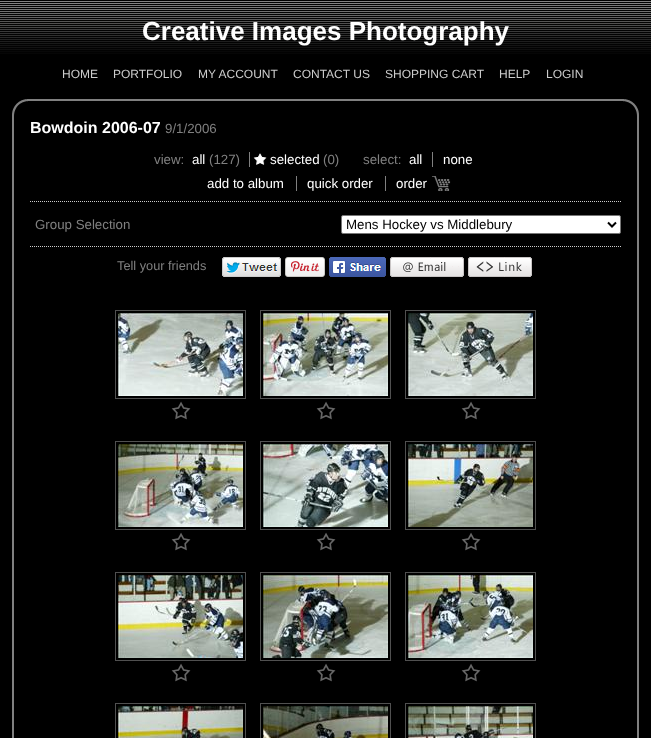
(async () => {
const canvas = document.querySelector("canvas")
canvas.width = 651
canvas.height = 738
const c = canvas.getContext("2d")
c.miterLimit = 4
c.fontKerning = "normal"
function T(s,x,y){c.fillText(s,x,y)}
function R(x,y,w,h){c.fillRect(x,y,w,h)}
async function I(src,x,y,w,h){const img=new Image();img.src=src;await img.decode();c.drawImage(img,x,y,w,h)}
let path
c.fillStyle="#000"
R(0,0,651,738)
await I("1.png",0,1,651,53)
c.font="bold 26px Liberation Sans"
c.fillStyle="#fff"
T("Creative Images Photography",142,40)
c.font="12px Liberation Sans"
c.fillStyle="#ccc"
T("HOME",62,78)
T("PORTFOLIO",113,78)
T("MY ACCOUNT",198,78)
T("CONTACT US",293,78)
T("SHOPPING CART",385,78)
T("HELP",499,78)
T("LOGIN",546,78)
c.fillStyle="#808080"
R(28,99,595,2)
await I("2.png",0,99,28,19)
await I("3.png",623,99,28,19)
R(12,118,2,620)
c.font="bold 16px Liberation Sans"
c.fillStyle="#fff"
T("Bowdoin 2006-07",30,133)
c.font="13.3px Liberation Sans"
c.fillStyle="#808080"
T("9/1/2006",165,133)
T("view:",154,164)
c.fillStyle="#fff"
T("all",192,164)
c.fillStyle="#808080"
T("(127)",209,164)
await I("4.png",253,153,14,12)
c.fillStyle="#fff"
T("selected",270,164)
c.fillStyle="#808080"
R(249,152,1,15)
T("(0)",323,164)
T("select:",363,164)
c.fillStyle="#fff"
T("all",409,164)
T("none",443,164)
c.fillStyle="#808080"
R(432,152,1,15)
c.fillStyle="#fff"
T("add to album",207,188)
T("quick order",307,188)
c.fillStyle="#808080"
R(296,176,1,15)
c.fillStyle="#fff"
T("order",396,188)
c.fillStyle="#808080"
R(385,176,1,15)
await I("5.png",432,176,19,15)
path = new Path2D("M30 201.5h591")
c.strokeStyle="#ccc"
c.setLineDash([1,1])
c.stroke(path)
path = new Path2D("M30 246.5h591")
c.stroke(path)
T("Group Selection",35,229)
c.fillStyle="#fff"
c.beginPath()
c.roundRect(341.5,215.5,279,18,1.5)
c.fill()
c.strokeStyle="#767676"
c.setLineDash([])
c.stroke()
path = new Path2D("M608 222.5l4 4l4-4")
c.strokeStyle="#000"
c.lineWidth=2
c.stroke(path)
c.fillStyle="#000"
T("Mens Hockey vs Middlebury",346,229)
c.font="12.75px Liberation Sans"
c.fillStyle="#808080"
T("Tell your friends",117,270)
await I("6.png",222,257,59,20)
await I("7.png",285,257,40,20)
await I("8.png",329,257,57,20)
await I("9.png",390,257,74,20)
await I("10.png",468,257,64,20)
await I("11.png",118,313,125,83)
c.strokeStyle="#505050"
c.lineWidth=1
c.strokeRect(115.5,310.5,130,88)
await I("12.png",171,401,20,19)
await I("13.png",263,313,125,83)
c.strokeRect(260.5,310.5,130,88)
await I("12.png",316,401,20,19)
await I("14.png",408,313,125,83)
c.strokeRect(405.5,310.5,130,88)
await I("12.png",461,401,20,19)
await I("15.png",118,444,125,83)
c.strokeRect(115.5,441.5,130,88)
await I("12.png",171,532,20,19)
await I("16.png",263,444,125,83)
c.strokeRect(260.5,441.5,130,88)
await I("12.png",316,532,20,19)
await I("17.png",408,444,125,83)
c.strokeRect(405.5,441.5,130,88)
await I("12.png",461,532,20,19)
await I("18.png",118,575,125,83)
c.strokeRect(115.5,572.5,130,88)
await I("12.png",171,663,20,19)
await I("19.png",263,575,125,83)
c.strokeRect(260.5,572.5,130,88)
await I("12.png",316,663,20,19)
await I("20.png",408,575,125,83)
c.strokeRect(405.5,572.5,130,88)
await I("12.png",461,663,20,19)
await I("21.png",118,706,125,32)
c.strokeRect(115.5,703.5,130,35)
await I("22.png",263,706,125,32)
c.strokeRect(260.5,703.5,130,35)
await I("23.png",408,706,125,32)
c.strokeRect(405.5,703.5,130,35)
R(637,118,2,620)
})()
